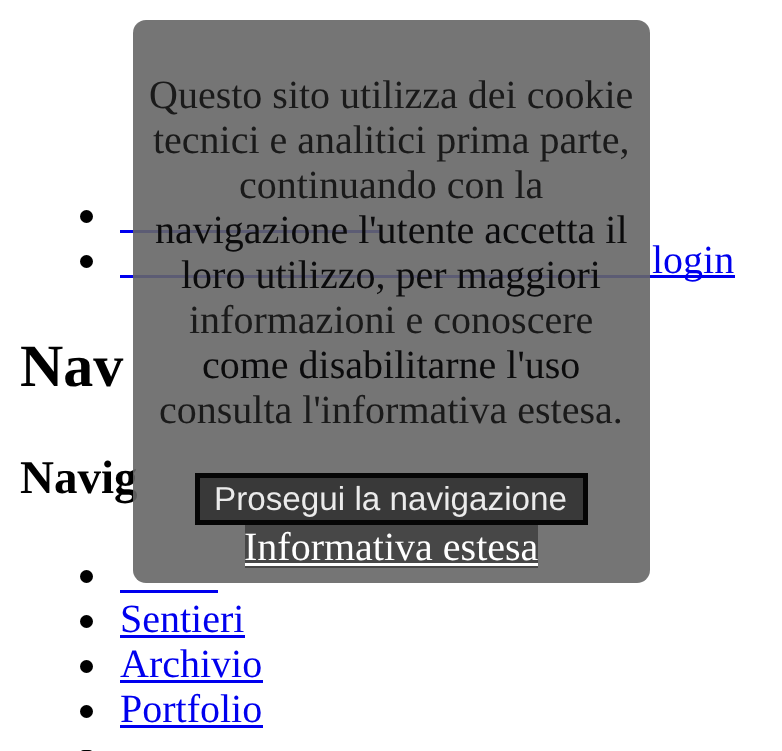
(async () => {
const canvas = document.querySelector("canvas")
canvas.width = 782
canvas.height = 751
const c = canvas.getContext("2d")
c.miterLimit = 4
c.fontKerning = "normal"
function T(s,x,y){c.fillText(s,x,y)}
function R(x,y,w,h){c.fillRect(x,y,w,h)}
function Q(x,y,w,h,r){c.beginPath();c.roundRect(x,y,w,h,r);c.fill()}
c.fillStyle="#fff"
R(0,0,782,751)
c.fillStyle="#00e"
R(120,230,260,3)
R(120,275,615,3)
c.font="bold 47px Liberation Serif"
c.fillStyle="#000"
T("Navig",20,493)
c.fillStyle="#666666e6"
Q(133,20,517,563,13)
c.font="40px Liberation Serif"
c.fillStyle="#1a1a1a"
T("Questo sito utilizza dei cookie",149,108)
T("tecnici e analitici prima parte,",153,153)
T("continuando con la",239,198)
c.fillStyle="#0b0b0c"
T("navigazione l'utente accetta il",155,243)
T("loro utilizzo, per maggiori",181,288)
c.fillStyle="#1a1a1a"
T("informazioni e conoscere",189,333)
c.fillStyle="#0b0b0c"
T("come disabilitarne l'uso",202,378)
c.fillStyle="#1a1a1a"
T("consulta l'informativa estesa.",159,423)
c.fillStyle="#333333e6"
R(195,473,393,52)
c.strokeStyle="#000000e6"
c.lineWidth=5
c.strokeRect(197.5,475.5,388,47)
c.font="33.25px Liberation Sans"
c.fillStyle="#ebebeb"
T("Prosegui la navigazione",214,510)
c.fillStyle="#474747"
R(245,525,293,43)
c.font="40px Liberation Serif"
c.fillStyle="#fff"
T("Informativa estesa",244,560)
R(245,563,293,3)
c.fillStyle="#000"
c.beginPath()
c.arc(86.5,216.5,6.5,0,7)
c.fill()
c.beginPath()
c.arc(86.5,261.5,6.5,0,7)
c.fill()
c.fillStyle="#00e"
T("login",652,273)
c.font="bold 60px Liberation Serif"
c.fillStyle="#000"
T("Nav",20,386)
c.beginPath()
c.arc(86.5,576.5,6.5,0,7)
c.fill()
c.fillStyle="#00e"
R(120,590,98,3)
c.fillStyle="#000"
c.beginPath()
c.arc(86.5,621.5,6.5,0,7)
c.fill()
c.font="40px Liberation Serif"
c.fillStyle="#00e"
T("Sentieri",120,632)
R(120,635,125,3)
c.fillStyle="#000"
c.beginPath()
c.arc(86.5,666.5,6.5,0,7)
c.fill()
c.fillStyle="#00e"
T("Archivio",120,677)
R(120,680,143,3)
c.fillStyle="#000"
c.beginPath()
c.arc(86.5,711.5,6.5,0,7)
c.fill()
c.fillStyle="#00e"
T("Portfolio",120,722)
R(120,725,143,3)
c.fillStyle="#000"
Q(80,750,13,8,6.5)
})()
